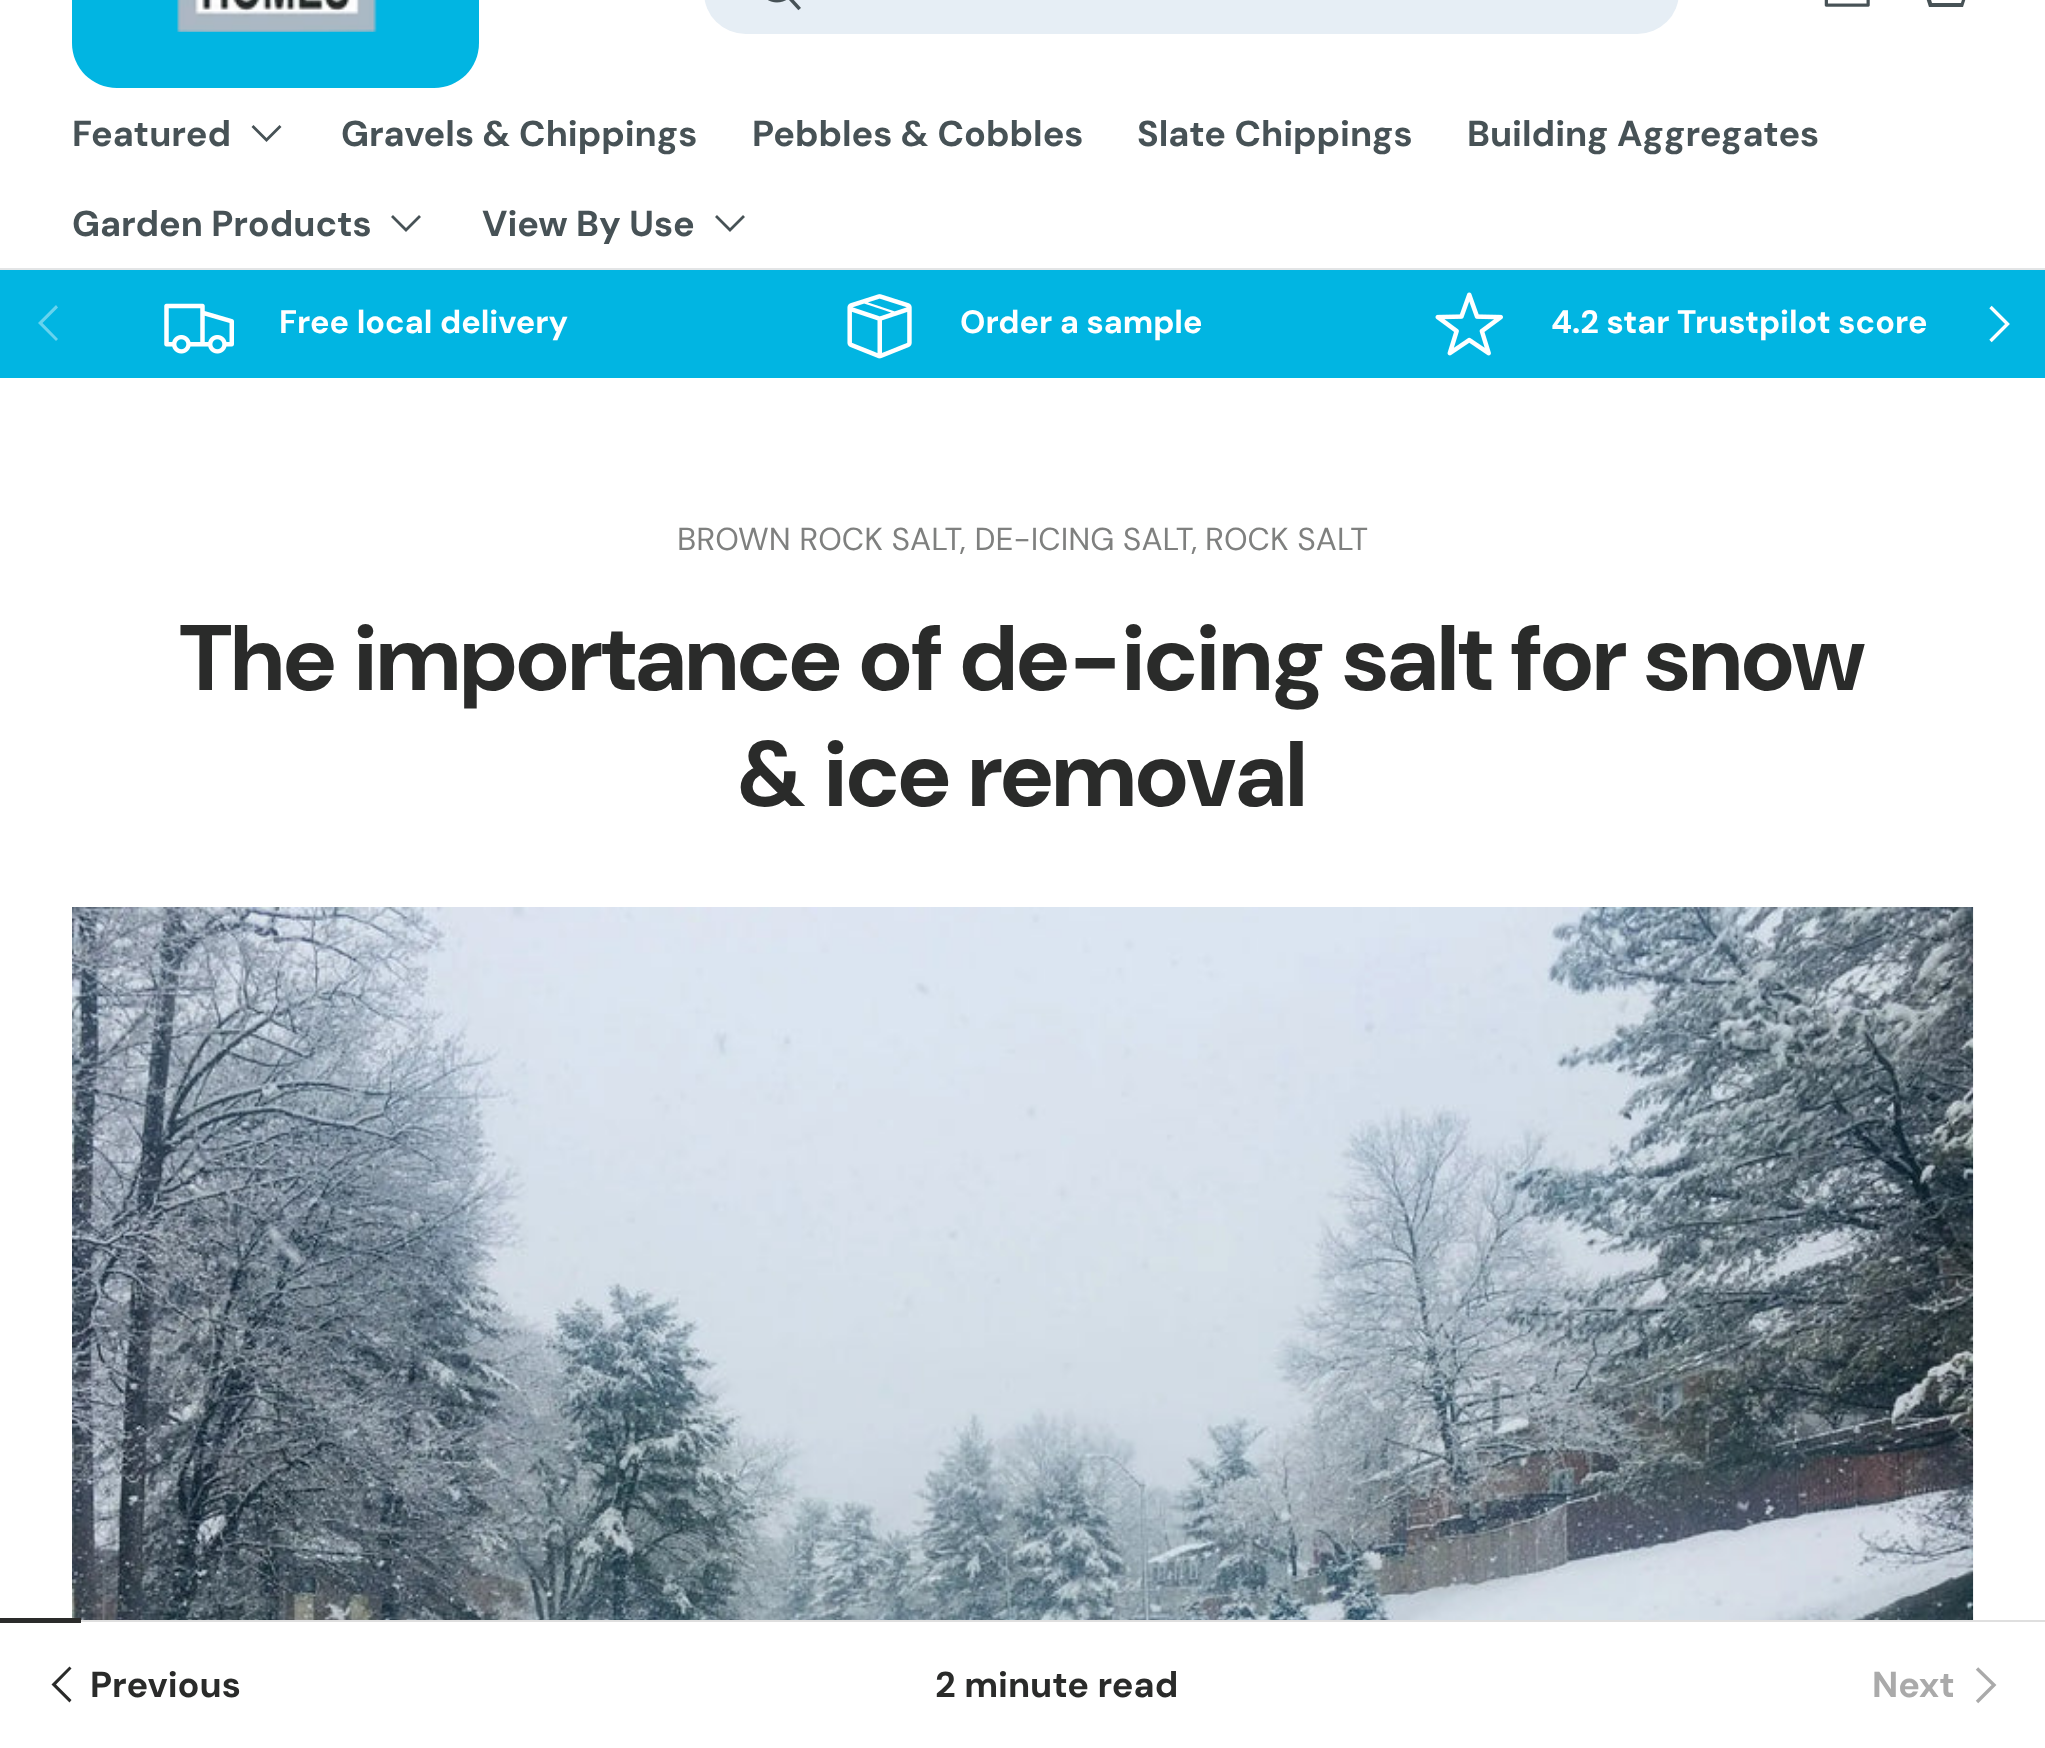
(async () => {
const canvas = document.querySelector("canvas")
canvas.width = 2045
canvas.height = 1748
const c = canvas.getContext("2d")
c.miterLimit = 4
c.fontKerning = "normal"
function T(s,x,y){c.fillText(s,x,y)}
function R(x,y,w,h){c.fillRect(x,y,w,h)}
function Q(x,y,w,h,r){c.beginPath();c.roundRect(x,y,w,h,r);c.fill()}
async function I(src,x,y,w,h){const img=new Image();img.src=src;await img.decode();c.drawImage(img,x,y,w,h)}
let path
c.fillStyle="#fff"
R(0,0,2045,1748)
c.fillStyle="#e3e5e6"
R(0,268,2045,2)
c.fillStyle="#01b5e2"
path = new Path2D("M72-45h407v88c0 25-20 45-45 45h-317c-25 0-45-20-45-45z")
c.fill(path)
await I("1.png",177,0,200,32)
c.fillStyle="#e6eef5"
Q(704,-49,975,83,48.5)
await I("2.png",768,0,33,11)
await I("3.png",1824,0,46,7)
c.fillStyle="#475256"
path = new Path2D("M1945-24v-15h4v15h24l-10 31h-34l-10-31zm-20 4l7 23h29l7-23z")
c.fill(path)
c.font="bold 36px 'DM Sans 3'"
T("Featured",72,146)
path = new Path2D("M280.5 126l-14 14l-14-14")
c.strokeStyle="#475256"
c.lineWidth=2.8
c.stroke(path)
T("Gravels & Chippings",341,146)
T("Pebbles & Cobbles",752,146)
T("Slate Chippings",1137,146)
T("Building Aggregates",1467,146)
T("Garden Products",72,236)
path = new Path2D("M420 216l-14 14l-14-14")
c.stroke(path)
T("View By Use",482,236)
path = new Path2D("M744 216l-14 14l-14-14")
c.stroke(path)
c.fillStyle="#01b5e2"
R(0,270,2045,108)
c.fillStyle="#67d3ee"
path = new Path2D("M38 323l18-18l2 2.5l-15.5 15.5l15.5 16l-2 2z")
c.fill(path)
path = new Path2D("M1990.5 307l17 17l-17 17")
c.strokeStyle="#fff"
c.lineWidth=3.4
c.stroke(path)
await I("4.png",164,303,70,51)
c.font="bold 32.4px 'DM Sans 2'"
c.fillStyle="#fff"
T("Free local delivery",279,333)
await I("5.png",847,294,65,65)
T("Order a sample",960,333)
await I("6.png",1435,292,68,64)
T("4.2 star Trustpilot score",1551,333)
c.font="31.7px DM Sans"
c.fillStyle="#7f807f"
T("BROWN ROCK SALT, DE-ICING SALT,",677,550)
T("ROCK SALT",1205,550)
c.font="bold 92.75px DM Sans"
c.fillStyle="#2a2b2a"
T("The importance of de-icing salt for snow",180,690)
T("& ice removal",739,806)
await I("7.png",72,907,1902,713)
c.fillStyle="#dfdfdf"
R(81,1620,1964,2)
c.fillStyle="#2a2b2a"
R(0,1618,81,5)
path = new Path2D("M51.5 1684.5l18-18l2 2l-15.5 16l15.5 15.5l-2 2.5z")
c.fill(path)
c.font="bold 36px 'DM Sans 3'"
T("Previous",90,1697)
T("2 minute read",935,1697)
c.fillStyle="#aaa"
T("Next",1872,1697)
path = new Path2D("M1977 1668.5l17 16.5l-17 17")
c.strokeStyle="#aaa"
c.stroke(path)
})()
